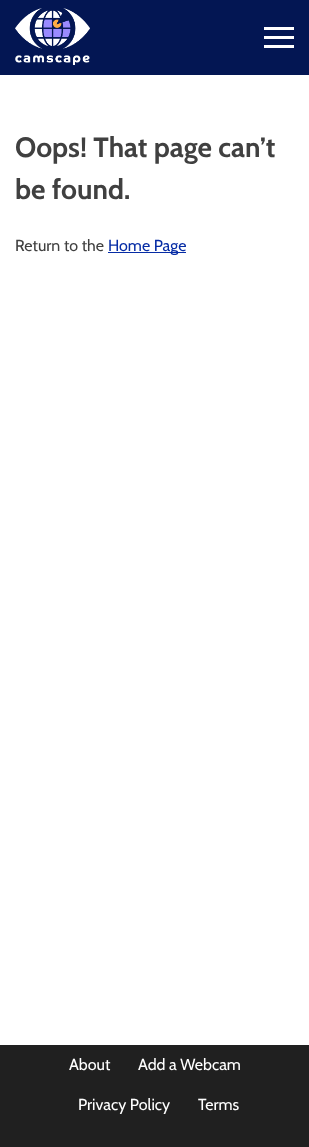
(async () => {
const canvas = document.querySelector("canvas")
canvas.width = 309
canvas.height = 1147
const c = canvas.getContext("2d")
c.miterLimit = 4
c.fontKerning = "normal"
function T(s,x,y){c.fillText(s,x,y)}
function R(x,y,w,h){c.fillRect(x,y,w,h)}
async function I(src,x,y,w,h){const img=new Image();img.src=src;await img.decode();c.drawImage(img,x,y,w,h)}
c.fillStyle="#fff"
R(0,0,309,1147)
c.fillStyle="#031653"
R(0,0,309,75)
await I("1.png",15,8,75,57)
c.fillStyle="#fff"
R(264,27,30,3)
R(264,36,30,3)
R(264,45,30,3)
c.font="bold 28px Cabin"
c.fillStyle="#404040"
T("Oops! That page can’t",15,157)
T("be found.",15,199)
c.font="16px Cabin"
T("Return to the",15,251)
c.fillStyle="#062ca5"
R(108,252,78,1)
T("Home Page",108,251)
c.fillStyle="#202020"
R(0,1045,309,102)
c.fillStyle="#fff"
T("About",69,1070)
T("Add a Webcam",138,1070)
T("Privacy Policy",78,1110)
T("Terms",198,1110)
})()
